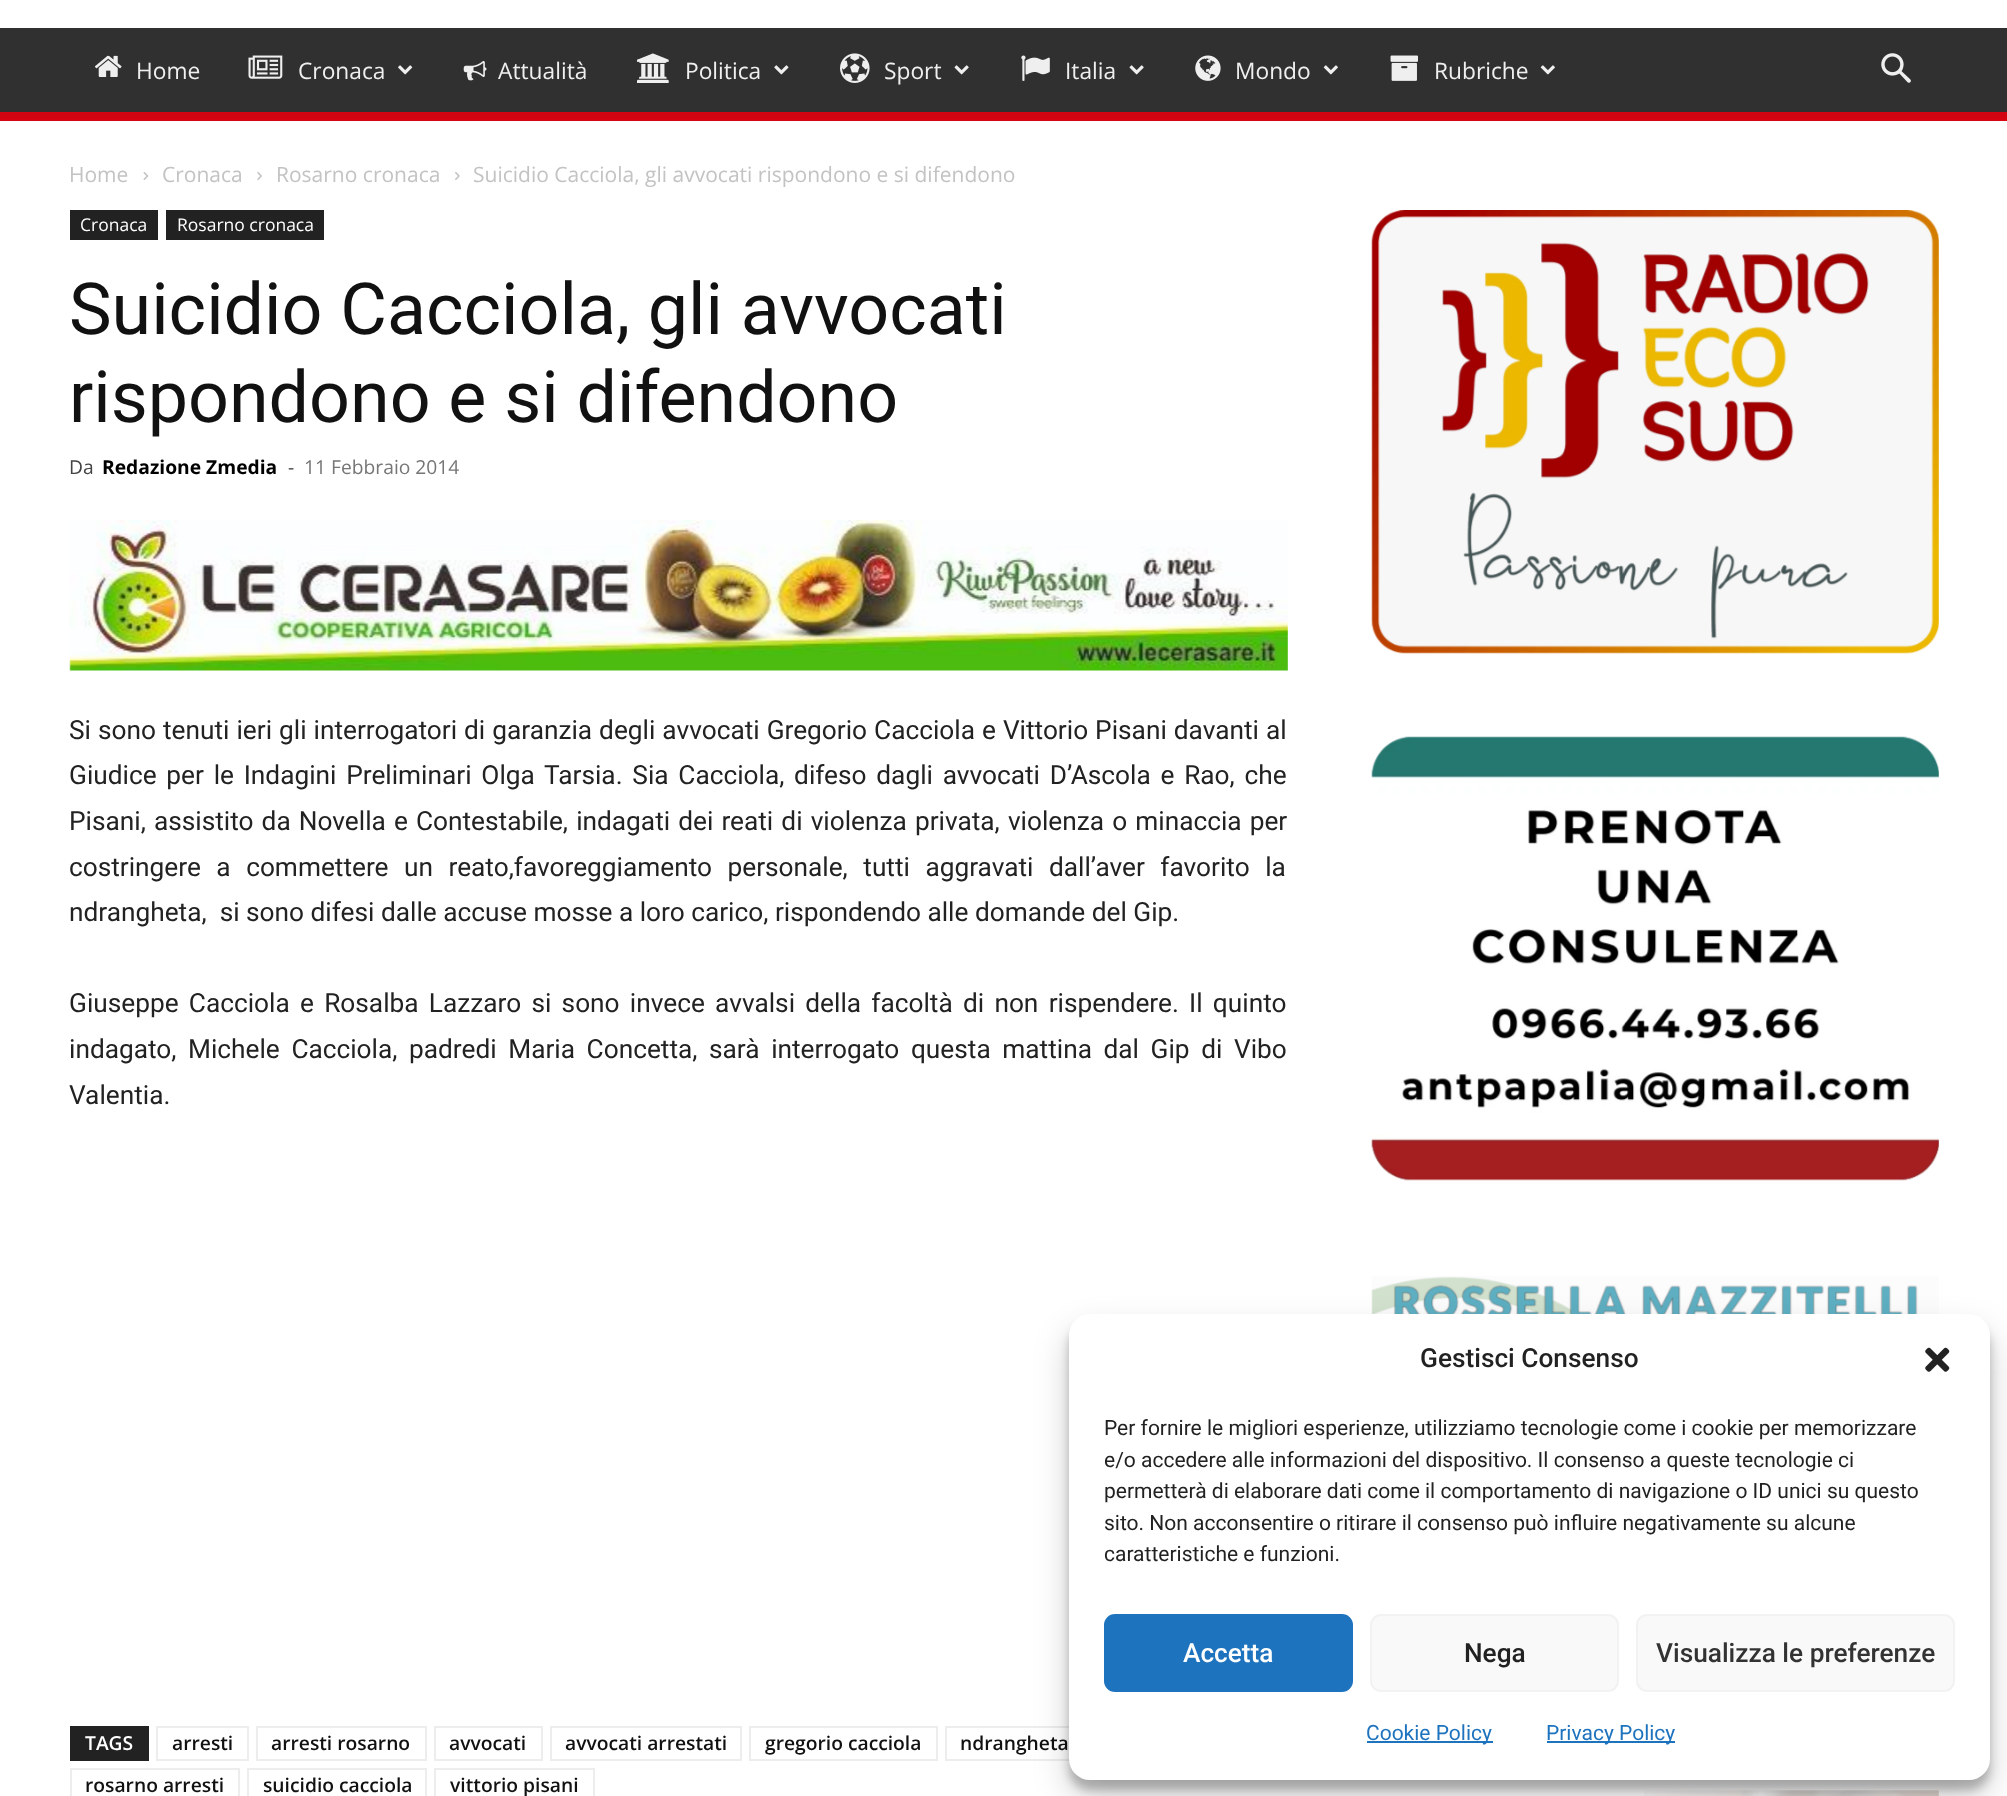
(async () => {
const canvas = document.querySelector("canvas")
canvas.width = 2007
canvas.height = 1796
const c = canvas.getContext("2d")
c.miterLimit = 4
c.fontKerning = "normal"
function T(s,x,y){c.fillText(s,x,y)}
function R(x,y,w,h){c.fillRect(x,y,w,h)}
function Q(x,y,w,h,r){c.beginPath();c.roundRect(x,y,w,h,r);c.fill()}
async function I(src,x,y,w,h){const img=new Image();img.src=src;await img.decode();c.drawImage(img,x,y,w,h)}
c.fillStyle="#fff"
R(0,0,2007,1796)
c.fillStyle="#303030"
R(0,28,2007,84)
await I("1.png",95,55,27,22)
c.font="22.75px Open Sans"
c.fillStyle="#efefef"
T("Home",136,79)
await I("2.png",248,55,35,24)
T("Cronaca",298,79)
await I("3.png",398,65,15,10)
await I("4.png",463,60,24,21)
T("Attualità",498,79)
await I("5.png",637,53,32,30)
T("Politica",685,79)
await I("6.png",774,65,15,10)
await I("7.png",840,53,30,30)
T("Sport",884,79)
await I("8.png",954,65,15,10)
await I("9.png",1021,55,29,26)
T("Italia",1065,79)
await I("8.png",1129,65,15,10)
await I("10.png",1195,55,26,26)
T("Mondo",1235,79)
await I("11.png",1323,65,15,10)
await I("12.png",1390,55,28,26)
T("Rubriche",1434,79)
await I("11.png",1540,65,15,10)
await I("13.png",1881,53,30,30)
c.fillStyle="#e30513"
R(0,112,2007,9)
await I("14.png",0,112,2007,9)
c.font="21px Open Sans"
c.fillStyle="#c3c3c3"
T("Home",69,182)
await I("15.png",143,172,6,8)
T("Cronaca",162,182)
await I("16.png",257,172,5,8)
T("Rosarno cronaca",276,182)
await I("17.png",455,172,5,8)
T("Suicidio Cacciola, gli avvocati rispondono e si difendono",473,182)
c.fillStyle="#222"
R(70,210,88,30)
c.font="17.5px Open Sans"
c.fillStyle="#fff"
T("Cronaca",80,231)
c.fillStyle="#222"
R(166,210,158,30)
c.fillStyle="#fff"
T("Rosarno cronaca",177,231)
c.font="71.75px Roboto"
c.fillStyle="#111"
T("Suicidio Cacciola, gli avvocati",69,334)
T("rispondono e si difendono",69,422)
c.font="19.25px Open Sans"
c.fillStyle="#444"
T("Da",69,474)
c.font="bold 19.25px Open Sans"
c.fillStyle="#000"
T("Redazione Zmedia",102,474)
c.font="19.25px Open Sans"
c.fillStyle="#444"
T("-",288,474)
c.fillStyle="#767676"
T("11 Febbraio 2014",304,474)
await I("18.png",69,520,1219,151)
c.wordSpacing="0.5px"
c.font="26.25px Roboto"
c.fillStyle="#222"
T("Si sono tenuti ieri gli interrogatori di garanzia degli avvocati Gregorio Cacciola e Vittorio Pisani davanti al",69,739)
c.wordSpacing="3.25px"
T("Giudice per le Indagini Preliminari Olga Tarsia. Sia Cacciola, difeso dagli avvocati D’Ascola e Rao, che",69,784)
c.wordSpacing="1.6px"
T("Pisani, assistito da Novella e Contestabile, indagati dei reati di violenza privata, violenza o minaccia per",69,830)
c.wordSpacing="9px"
T("costringere a commettere un reato,favoreggiamento personale, tutti aggravati dall’aver favorito la",69,876)
c.wordSpacing="0px"
T("ndrangheta,  si sono difesi dalle accuse mosse a loro carico, rispondendo alle domande del Gip.",69,921)
c.wordSpacing="3.75px"
T("Giuseppe Cacciola e Rosalba Lazzaro si sono invece avvalsi della facoltà di non rispendere. Il quinto",69,1012)
c.wordSpacing="5.1px"
T("indagato, Michele Cacciola, padredi Maria Concetta, sarà interrogato questa mattina dal Gip di Vibo",69,1058)
c.wordSpacing="0px"
T("Valentia.",69,1104)
R(70,1726,79,35)
c.font="600 19.25px Open Sans"
c.fillStyle="#fff"
T("TAGS",85,1750)
c.strokeStyle="#ededed"
c.lineWidth=2
c.strokeRect(157,1727,91,33)
c.fillStyle="#111"
T("arresti",172,1750)
c.strokeRect(257,1727,169,33)
T("arresti rosarno",271,1750)
c.strokeRect(435,1727,107,33)
T("avvocati",449,1750)
c.strokeRect(551,1727,190,33)
T("avvocati arrestati",565,1750)
c.strokeRect(750,1727,187,33)
T("gregorio cacciola",765,1750)
c.strokeRect(946,1727,138,33)
T("ndrangheta",960,1750)
c.strokeRect(71,1769,168,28)
T("rosarno arresti",85,1792)
c.strokeRect(248,1769,178,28)
T("suicidio cacciola",263,1792)
c.strokeRect(435,1769,159,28)
T("vittorio pisani",450,1792)
await I("19.png",1371,210,568,444)
await I("20.png",1371,736,568,445)
await I("21.png",1371,1276,568,38)
await I("22.png",1644,1790,295,6)
c.fillStyle="#0000003b"
c.filter="blur(5px)"
c.beginPath()
c.roundRect(1069,1325,921,465,21)
c.fill()
c.filter="none"
c.fillStyle="#00000030"
c.filter="blur(17.5px)"
c.beginPath()
c.roundRect(1069,1332,921,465,21)
c.fill()
c.filter="none"
c.fillStyle="#fff"
Q(1069,1314,921,466,21)
c.font="500 26.25px Roboto"
c.fillStyle="#222"
T("Gestisci Consenso",1420,1367)
await I("23.png",1925,1347,25,25)
c.font="21px Roboto"
T("Per fornire le migliori esperienze, utilizziamo tecnologie come i cookie per memorizzare",1104,1435)
T("e/o accedere alle informazioni del dispositivo. Il consenso a queste tecnologie ci",1104,1467)
T("permetterà di elaborare dati come il comportamento di navigazione o ID unici su questo",1104,1498)
T("sito. Non acconsentire o ritirare il consenso può influire negativamente su alcune",1104,1530)
T("caratteristiche e funzioni.",1104,1561)
c.fillStyle="#1e73be"
c.beginPath()
c.roundRect(1105,1615,247,76,10)
c.fill()
c.strokeStyle="#1e73be"
c.stroke()
c.font="500 26.25px Roboto"
c.fillStyle="#fff"
T("Accetta",1183,1662)
c.fillStyle="#f9f9f9"
c.beginPath()
c.roundRect(1371,1615,247,76,10)
c.fill()
c.strokeStyle="#f2f2f2"
c.stroke()
c.fillStyle="#222"
T("Nega",1464,1662)
c.fillStyle="#f9f9f9"
c.beginPath()
c.roundRect(1637,1615,317,76,10)
c.fill()
c.stroke()
c.fillStyle="#333"
T("Visualizza le preferenze",1656,1662)
c.fillStyle="#1e73be"
R(1367,1741,126,2)
c.font="21px Roboto"
T("Cookie Policy",1366,1740)
R(1547,1741,128,2)
T("Privacy Policy",1546,1740)
})()
